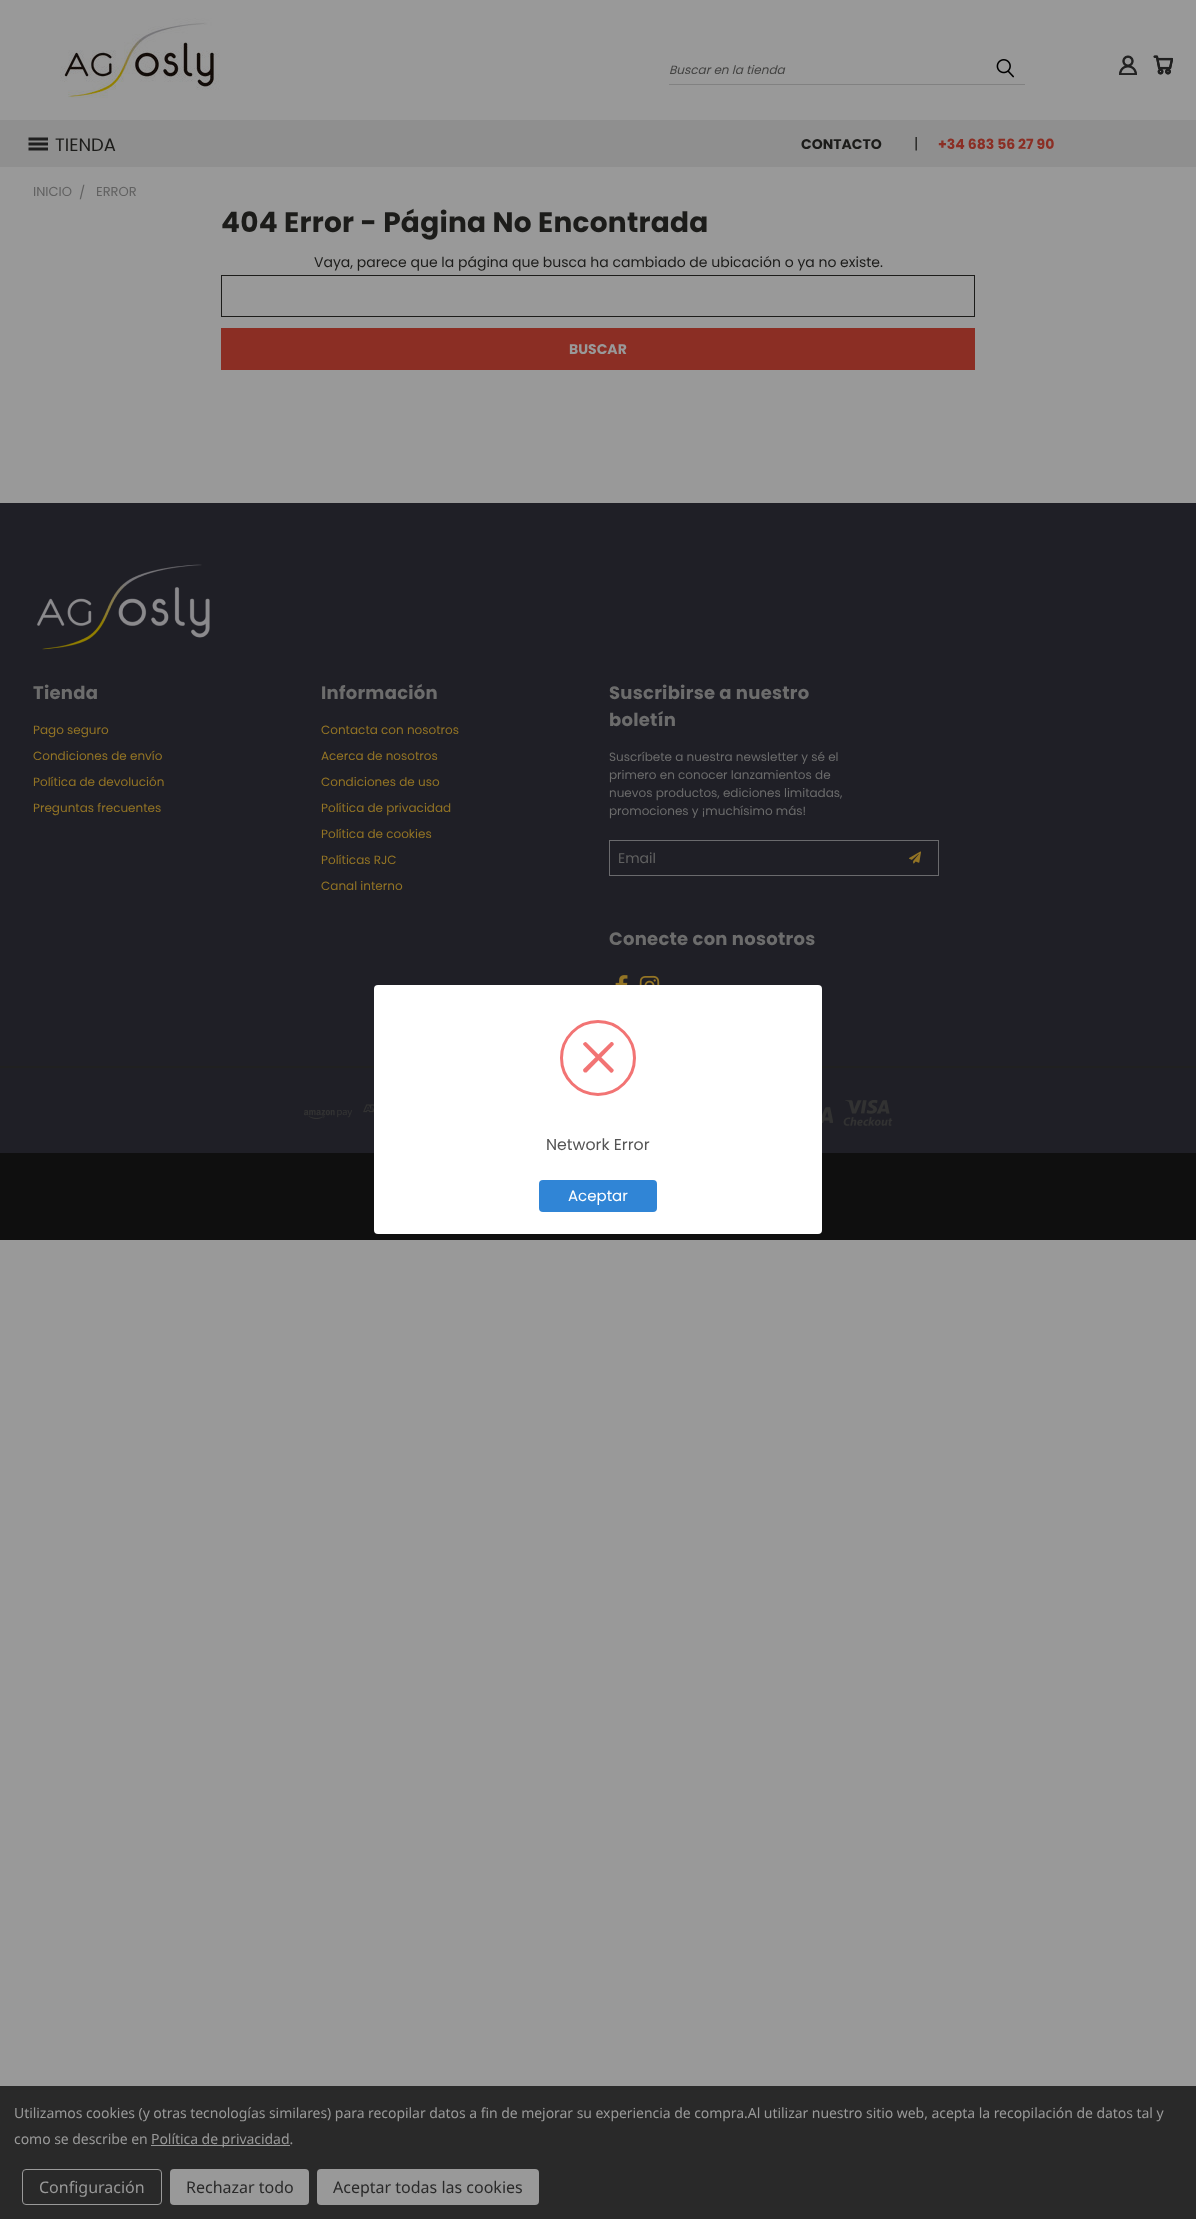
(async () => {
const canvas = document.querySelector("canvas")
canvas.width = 1196
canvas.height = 2219
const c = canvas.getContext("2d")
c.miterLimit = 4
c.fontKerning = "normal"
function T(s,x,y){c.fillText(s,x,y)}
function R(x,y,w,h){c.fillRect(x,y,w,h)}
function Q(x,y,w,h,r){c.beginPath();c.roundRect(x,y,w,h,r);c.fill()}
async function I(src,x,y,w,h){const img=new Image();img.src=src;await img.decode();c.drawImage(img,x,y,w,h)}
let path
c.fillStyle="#999"
R(0,0,1196,2219)
await I("1.png",60,18,160,80)
c.fillStyle="#818181"
R(669,84,356,1)
c.font="italic 12px Poppins"
c.fillStyle="#434342"
T("Buscar en la tienda",669,74)
await I("2.png",996,59,18,19)
await I("3.png",1119,55,18,20)
await I("4.png",1153,55,20,20)
c.fillStyle="#8f8f8f"
R(0,120,1196,47)
await I("5.png",28,137,20,14)
c.font="18px Poppins"
c.fillStyle="#1c1c1a"
T("TIENDA",55,151)
c.font="bold 14px Poppins"
T("CONTACTO",801,149)
c.font="15px Poppins"
T("|",914,149)
c.font="bold 14px Poppins"
c.fillStyle="#8b2e24"
T("+34 683 56 27 90",938,149)
c.font="13px Poppins"
c.fillStyle="#616161"
T("INICIO",33,196)
T("/",79,197)
T("ERROR",96,196)
c.letterSpacing="0.25px"
c.font="bold 28px Poppins"
c.fillStyle="#1c1c1a"
T("404 Error - Página No Encontrada",221,232)
c.letterSpacing="0px"
c.font="14px Poppins"
T("Vaya, parece que la página que busca ha cambiado de ubicación o ya no existe.",314,267)
c.strokeStyle="#1c1c1a"
c.strokeRect(221.5,275.5,753,41)
c.fillStyle="#8b2e24"
R(221,328,754,42)
c.font="bold 14px Poppins"
c.fillStyle="#999"
T("BUSCAR",569,354)
c.fillStyle="#1f1f26"
R(0,503,1196,650)
await I("6.png",36,564,174,86)
c.letterSpacing="0.25px"
c.font="bold 18px Poppins"
c.fillStyle="#6c6c6c"
T("Tienda",33,699)
c.letterSpacing="0px"
c.font="12px Poppins"
c.fillStyle="#937425"
T("Pago seguro",33,734)
T("Condiciones de envío",33,760)
T("Política de devolución",33,786)
T("Preguntas frecuentes",33,812)
c.letterSpacing="0.25px"
c.font="bold 18px Poppins"
c.fillStyle="#6c6c6c"
T("Información",321,699)
c.letterSpacing="0px"
c.font="12px Poppins"
c.fillStyle="#937425"
T("Contacta con nosotros",321,734)
T("Acerca de nosotros",321,760)
T("Condiciones de uso",321,786)
T("Política de privacidad",321,812)
T("Política de cookies",321,838)
T("Políticas RJC",321,864)
T("Canal interno",321,890)
c.letterSpacing="0.25px"
c.font="bold 18px Poppins"
c.fillStyle="#6c6c6c"
T("Suscribirse a nuestro",609,699)
T("boletín",609,726)
c.letterSpacing="0px"
c.font="12px Poppins"
T("Suscríbete a nuestra newsletter y sé el",609,761)
T("primero en conocer lanzamientos de",609,779)
T("nuevos productos, ediciones limitadas,",609,797)
T("promociones y ¡muchísimo más!",609,815)
c.strokeStyle="#6a6a6d"
c.strokeRect(609.5,840.5,329,35)
c.font="14px Poppins"
c.fillStyle="#616161"
T("Email",618,863)
await I("7.png",909,851,12,13)
c.letterSpacing="0.25px"
c.font="bold 18px Poppins"
c.fillStyle="#6c6c6c"
T("Conecte con nosotros",609,945)
await I("8.png",615,975,13,10)
await I("9.png",639,975,21,10)
c.fillStyle="#202020"
R(0,1066,1196,2)
await I("10.png",304,1110,48,9)
await I("11.png",363,1104,11,9)
await I("12.png",822,1107,11,16)
await I("13.png",843,1100,50,26)
c.fillStyle="#0f0f0f"
R(0,1153,1196,87)
c.fillStyle="#fff"
Q(374,985,448,249,4)
c.beginPath()
c.arc(598,1058,36.5,0,7)
c.strokeStyle="#f27474"
c.lineWidth=3
c.stroke()
c.fillStyle="#f27474"
path = new Path2D("M586.5 1042.5l27 27c1 1.5-1.5 4-3 3l-27-27.5l-.5-1c.5-1.5 2.5-3 3.5-1.5z")
c.fill(path)
path = new Path2D("M583.5 1069l27.5-27c1.5-.5 3.5 1.5 2.5 3l-27 27.5h-1.5c-1.5 0-2.5-2.5-1.5-3.5z")
c.fill(path)
c.letterSpacing="0px"
c.font="15.75px Poppins"
c.fillStyle="#545454"
T("Network Error",546,1150)
c.fillStyle="#3085d6"
Q(539,1180,118,32,4)
c.font="15px Poppins"
c.fillStyle="#fff"
T("Aceptar",568,1201)
c.fillStyle="#292929"
R(0,2086,1196,133)
c.letterSpacing="-0.05px"
c.font="14px Noto Sans"
c.fillStyle="#999"
T("Utilizamos cookies (y otras tecnologías similares) para recopilar datos a fin de mejorar su experiencia de compra.Al utilizar nuestro sitio web, acepta la recopilación de datos tal y",14,2118)
T("como se describe en",14,2144)
R(151,2145,139,1)
T("Política de privacidad.",151,2144)
c.beginPath()
c.roundRect(22.5,2169.5,139,35,3.5)
c.strokeStyle="#999"
c.lineWidth=1
c.stroke()
c.letterSpacing="0px"
c.font="16px Noto Sans"
T("Configuración",39,2193)
Q(170,2169,139,36,4)
c.fillStyle="#292929"
T("Rechazar todo",186,2193)
c.fillStyle="#999"
Q(317,2169,222,36,4)
c.fillStyle="#292929"
T("Aceptar todas las cookies",333,2193)
})()
